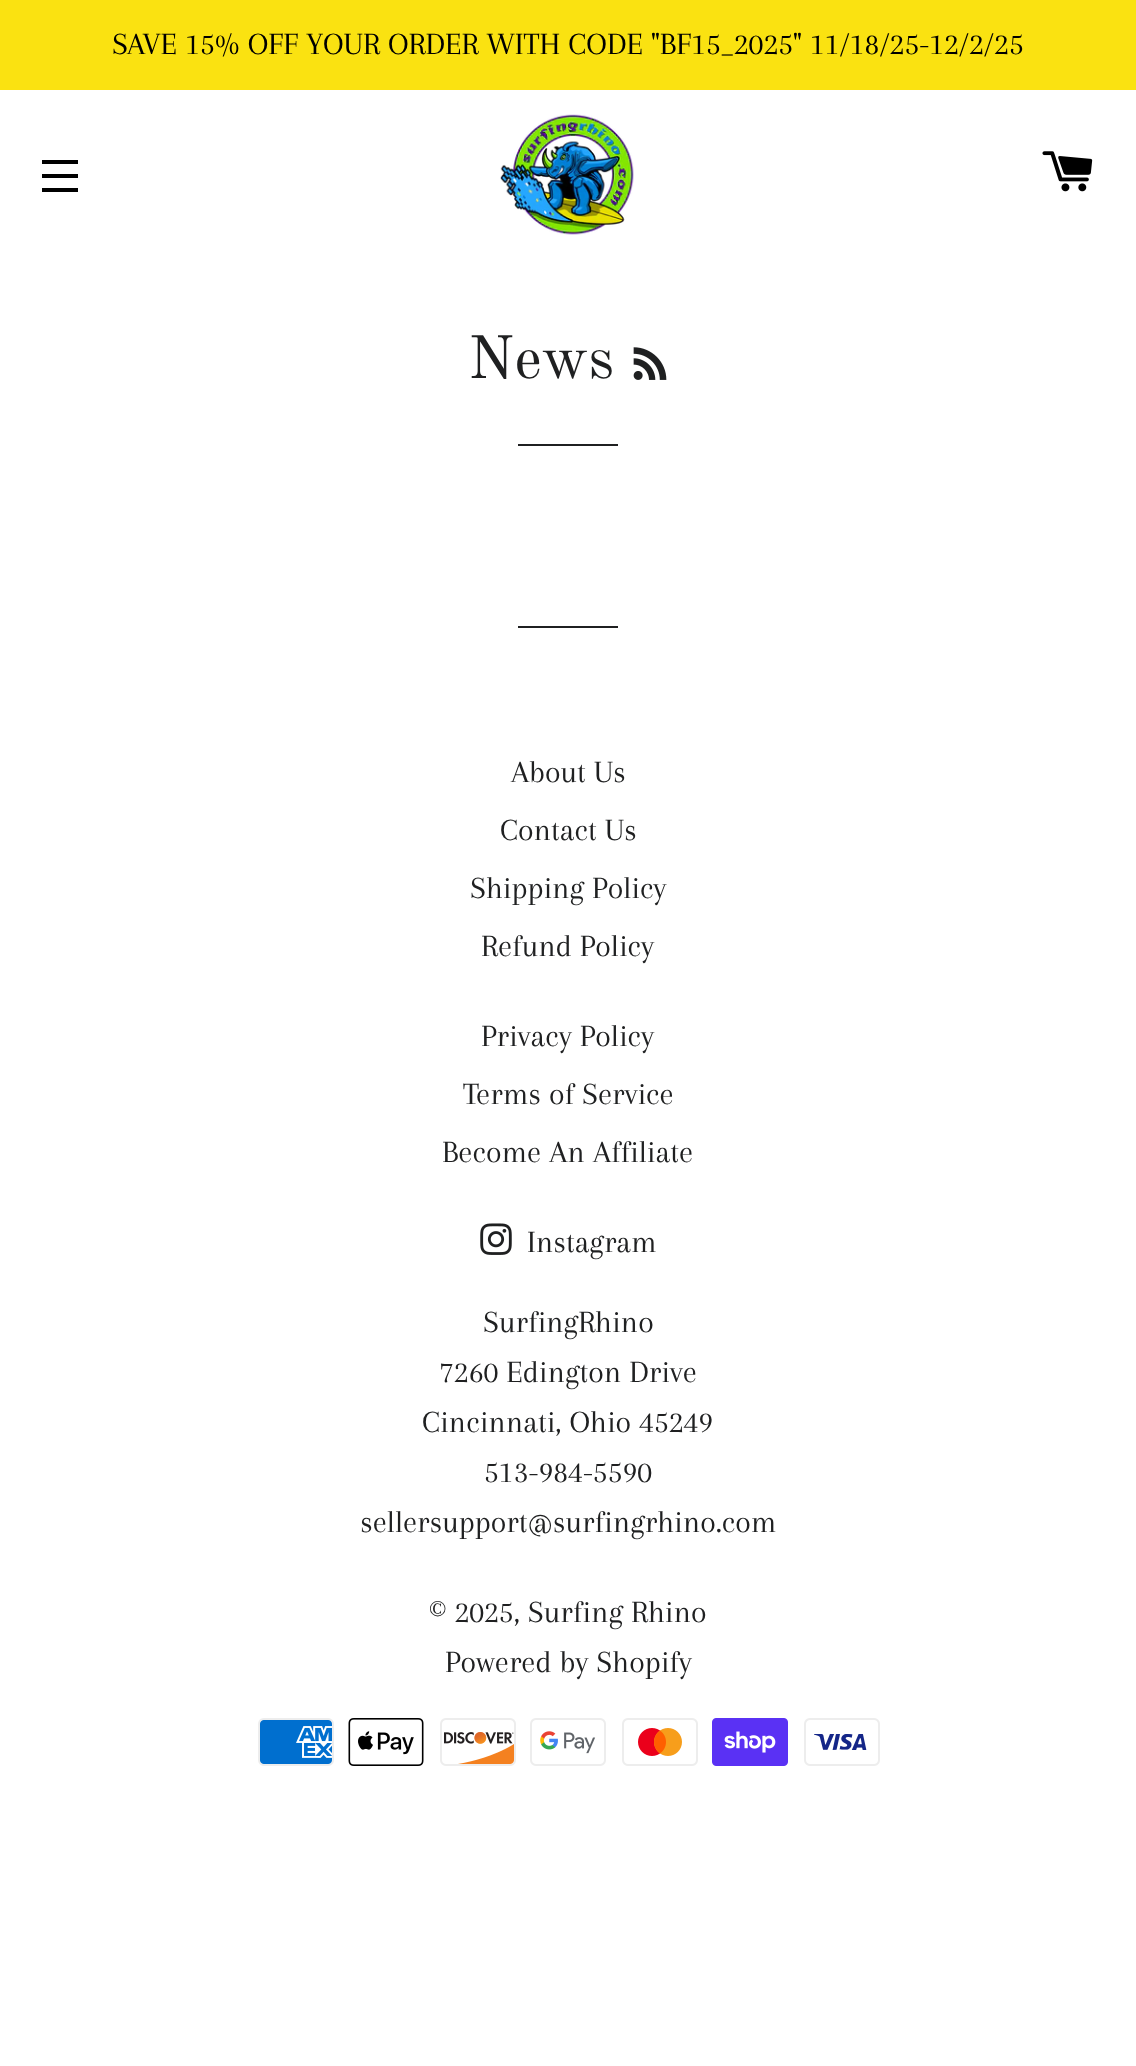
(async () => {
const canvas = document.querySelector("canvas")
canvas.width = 1136
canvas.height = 2066
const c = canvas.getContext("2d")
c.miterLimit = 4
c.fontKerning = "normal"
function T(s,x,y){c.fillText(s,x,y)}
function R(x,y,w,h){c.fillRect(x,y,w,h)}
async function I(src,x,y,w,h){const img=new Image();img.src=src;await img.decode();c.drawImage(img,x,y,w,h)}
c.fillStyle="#fff"
R(0,0,1136,2066)
c.fillStyle="#fae211"
R(0,0,1136,90)
c.font="32px Arapey"
c.fillStyle="#000"
T("SAVE 15% OFF YOUR ORDER WITH CODE \"BF15_2025\" 11/18/25-12/2/25",112,54)
R(42,160,36,4)
R(42,174,36,4)
R(42,188,36,4)
await I("1.png",500,114,134,121)
await I("2.png",1042,151,51,41)
c.font="60px Old Standard TT"
c.fillStyle="#1f2021"
T("News",468,378)
await I("3.png",633,347,34,33)
R(518,444,100,2)
R(518,626,100,2)
c.font="32px Arapey"
T("About Us",511,782)
T("Contact Us",500,840)
T("Shipping Policy",470,898)
T("Refund Policy",481,956)
T("Privacy Policy",481,1046)
T("Terms of Service",463,1104)
T("Become An Affiliate",442,1162)
await I("4.png",480,1223,32,32)
T("Instagram",527,1252)
T("SurfingRhino",483,1332)
T("7260 Edington Drive",439,1382)
T("Cincinnati, Ohio 45249",422,1432)
T("513-984-5590",484,1482)
T("sellersupport@surfingrhino.com",360,1532)
T("© 2025, Surfing Rhino",429,1622)
T("Powered by Shopify",445,1672)
await I("5.png",258,1718,76,48)
await I("6.png",348,1718,76,48)
await I("7.png",440,1718,76,48)
await I("8.png",530,1718,76,48)
await I("9.png",622,1718,76,48)
await I("10.png",712,1718,76,48)
await I("11.png",804,1718,76,48)
})()
